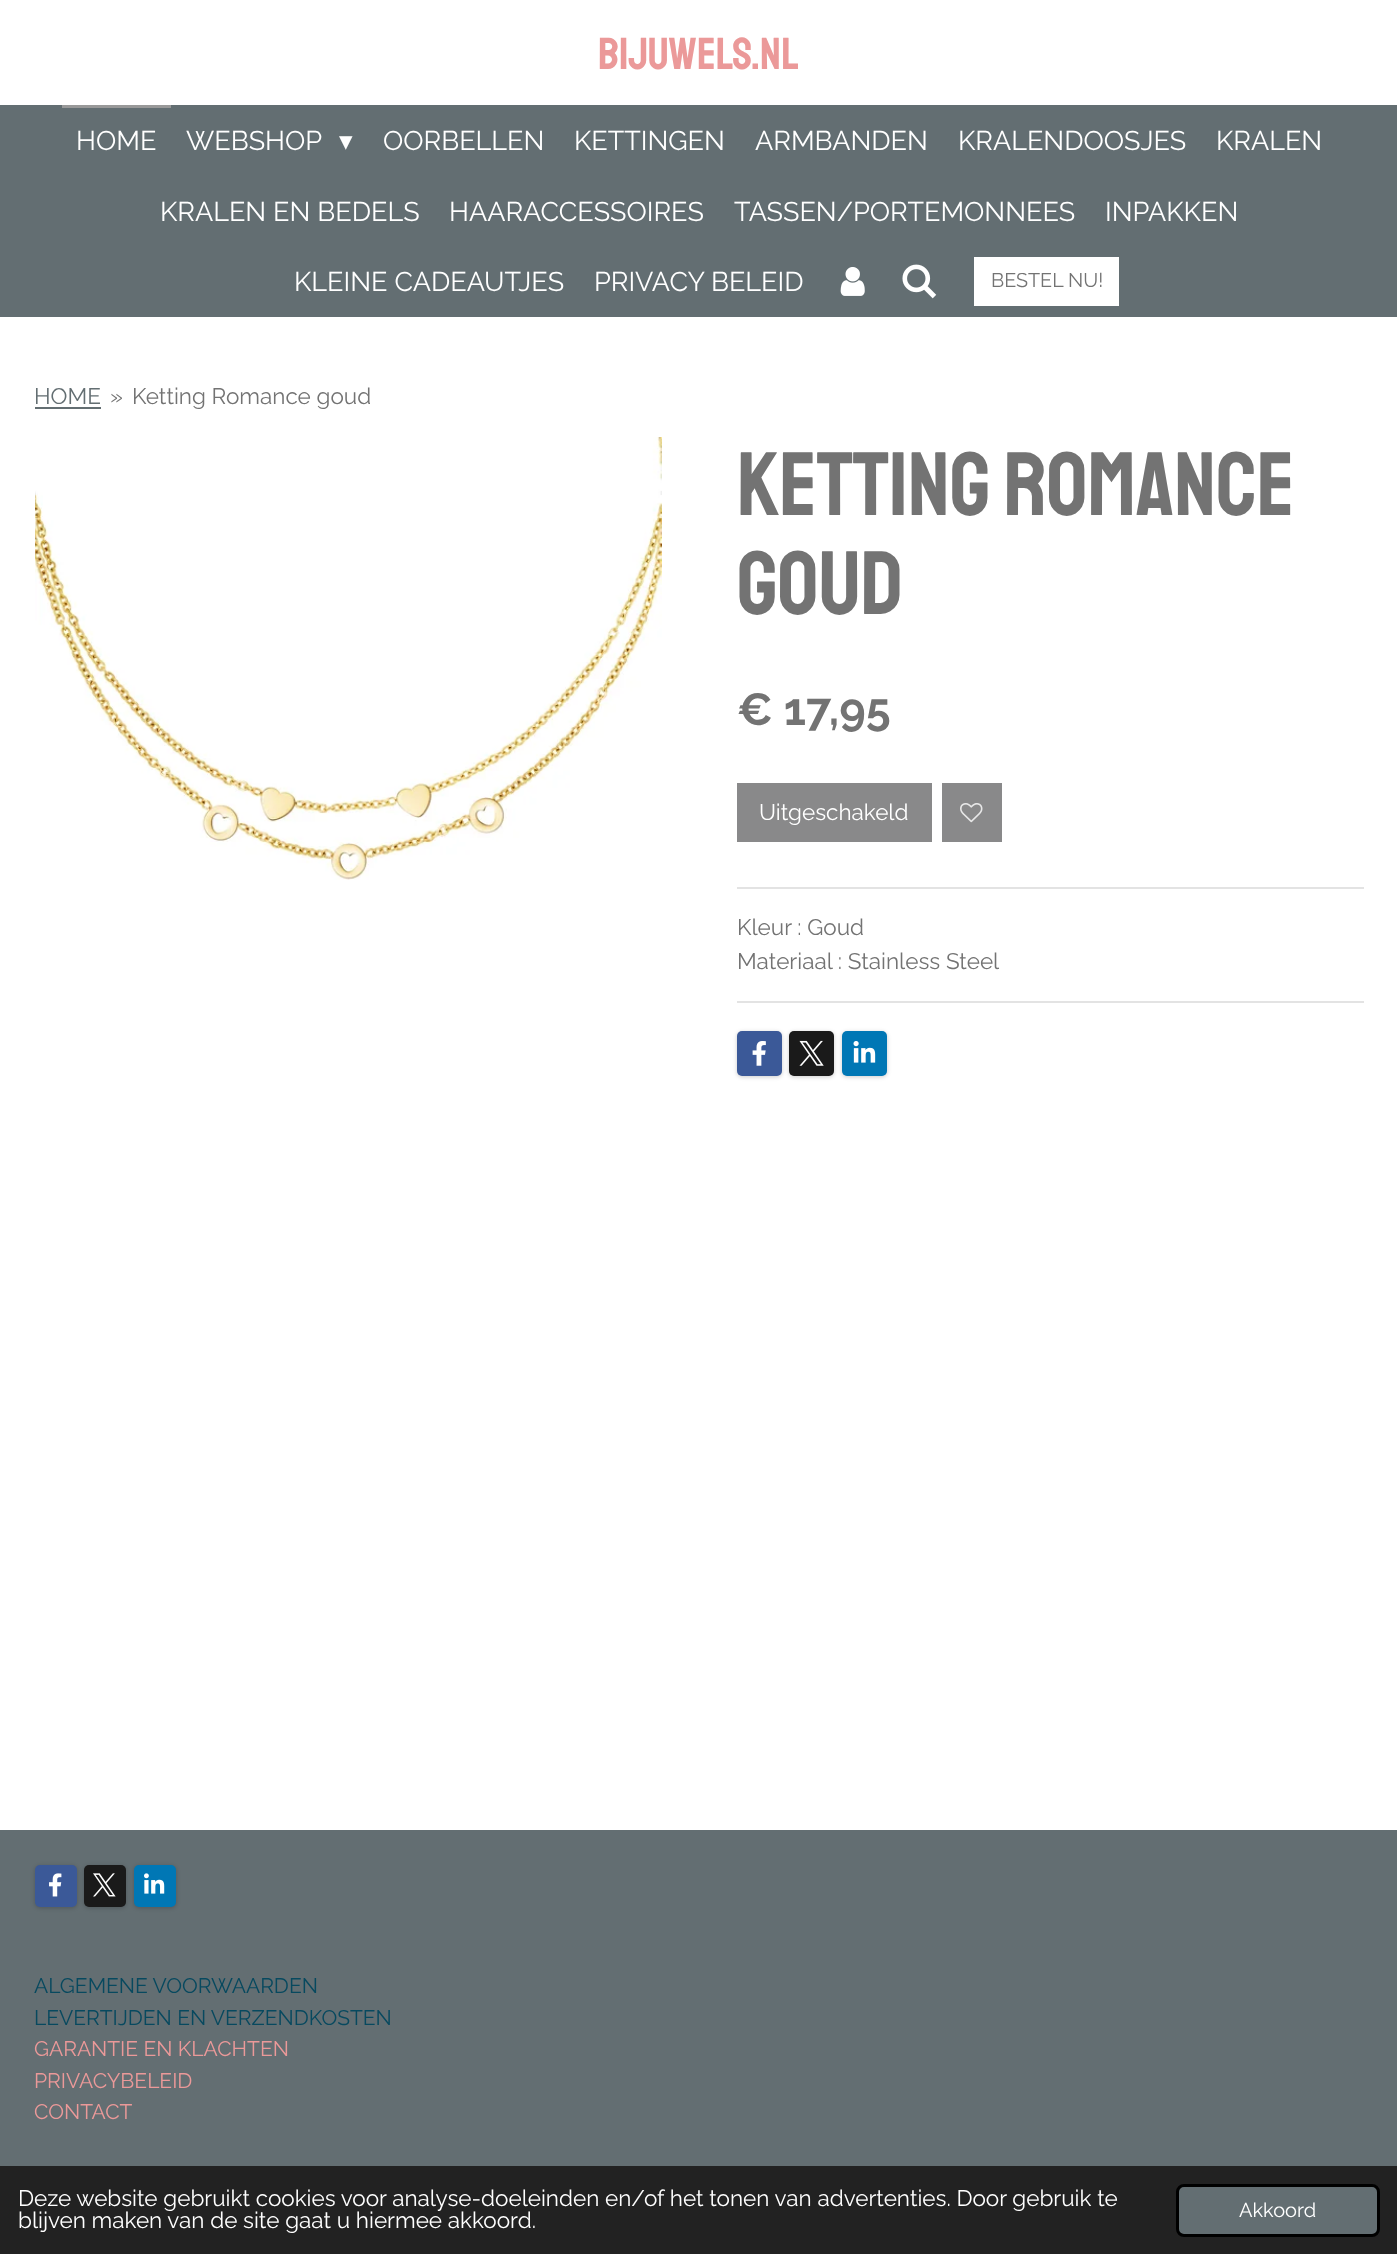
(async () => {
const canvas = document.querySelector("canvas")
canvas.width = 1397
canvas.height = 2254
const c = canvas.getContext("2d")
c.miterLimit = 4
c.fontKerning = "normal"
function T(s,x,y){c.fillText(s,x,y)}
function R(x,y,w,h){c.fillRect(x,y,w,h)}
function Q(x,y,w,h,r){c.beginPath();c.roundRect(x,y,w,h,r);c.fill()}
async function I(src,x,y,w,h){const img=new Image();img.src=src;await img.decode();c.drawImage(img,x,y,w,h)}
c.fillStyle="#fff"
R(0,0,1397,2254)
c.font="45px Staatliches"
c.fillStyle="#eb9999"
T("Bijuwels.nl",598,69)
c.fillStyle="#636e72"
R(0,105,1397,212)
c.fillStyle="#999"
R(62,105,109,3)
c.font="27px Raleway"
c.fillStyle="#fff"
T("HOME",76,150)
T("WEBSHOP",186,150)
c.font="27px DejaVu Sans"
T("▾",339,150)
c.font="27px Raleway"
T("OORBELLEN",383,150)
T("KETTINGEN",574,150)
T("ARMBANDEN",755,150)
T("KRALENDOOSJES",958,150)
T("KRALEN",1216,150)
T("KRALEN EN BEDELS",160,221)
T("HAARACCESSOIRES",449,221)
T("TASSEN/PORTEMONNEES",734,221)
T("INPAKKEN",1105,221)
T("KLEINE CADEAUTJES",294,291)
T("PRIVACY BELEID",594,291)
await I("1.png",840,267,25,29)
await I("2.png",902,264,35,35)
R(974,257,145,49)
c.font="19.75px Raleway"
c.fillStyle="#737373"
T("BESTEL NU!",991,287)
c.font="22.5px Raleway"
c.fillStyle="#636e72"
T("HOME",34,404)
R(35,407,66,2)
c.fillStyle="#737373"
T("»",110,404)
T("Ketting Romance goud",132,404)
await I("3.png",35,437,627,443)
c.font="90px Staatliches"
T("Ketting Romance",737,515)
T("goud",737,614)
c.font="bold 45px Raleway"
T("€ 17,95",737,725)
c.fillStyle="#89898a"
R(737,783,195,59)
c.font="22.5px Raleway"
c.fillStyle="#fff"
T("Uitgeschakeld",759,820)
c.fillStyle="#89898a"
R(942,783,60,59)
await I("4.png",960,803,23,20)
c.fillStyle="#e3e3e3"
R(737,887,627,2)
c.fillStyle="#737373"
T("Kleur : Goud",737,935)
T("Materiaal : Stainless Steel",737,969)
c.fillStyle="#e3e3e3"
R(737,1001,627,2)
c.fillStyle="#00000033"
c.filter="blur(2px)"
c.beginPath()
c.roundRect(737,1032,45,45,5)
c.fill()
c.filter="none"
c.fillStyle="#3b5998"
Q(737,1031,45,45,5)
await I("5.png",752,1041,14,25)
c.fillStyle="#00000033"
c.filter="blur(2px)"
c.beginPath()
c.roundRect(789,1032,45,45,5)
c.fill()
c.filter="none"
c.fillStyle="#1a1a1a"
Q(789,1031,45,45,5)
await I("6.png",799,1040,25,26)
c.fillStyle="#00000033"
c.filter="blur(2px)"
c.beginPath()
c.roundRect(842,1032,45,45,5)
c.fill()
c.filter="none"
c.fillStyle="#0077b5"
Q(842,1031,45,45,5)
await I("7.png",853,1041,23,22)
c.fillStyle="#636e72"
R(0,1830,1397,336)
c.fillStyle="#00000033"
c.filter="blur(2px)"
c.beginPath()
c.roundRect(35,1866,42,42,5)
c.fill()
c.filter="none"
c.fillStyle="#3b5998"
Q(35,1865,42,42,5)
await I("8.png",49,1873,13,24)
c.fillStyle="#00000033"
c.filter="blur(2px)"
c.beginPath()
c.roundRect(84,1866,42,42,5)
c.fill()
c.filter="none"
c.fillStyle="#1a1a1a"
Q(84,1865,42,42,5)
await I("9.png",93,1873,23,24)
c.fillStyle="#00000033"
c.filter="blur(2px)"
c.beginPath()
c.roundRect(134,1866,42,42,5)
c.fill()
c.filter="none"
c.fillStyle="#0077b5"
Q(134,1865,42,42,5)
await I("10.png",144,1873,21,21)
c.font="21px Raleway"
c.fillStyle="#07495f"
T("ALGEMENE VOORWAARDEN",34,1993)
T("LEVERTIJDEN EN VERZENDKOSTEN",34,2025)
c.fillStyle="#eb9999"
T("GARANTIE EN KLACHTEN",34,2056)
T("PRIVACYBELEID",34,2088)
T("CONTACT",34,2119)
c.fillStyle="#222"
R(0,2166,1397,88)
c.font="22.5px Raleway"
c.fillStyle="#fff"
T("Deze website gebruikt cookies voor analyse-doeleinden en/of het tonen van advertenties. Door gebruik te",18,2206)
T("blijven maken van de site gaat u hiermee akkoord.",18,2228)
c.fillStyle="#636e72"
c.beginPath()
c.roundRect(1177.5,2185.5,201,50,6.5)
c.fill()
c.strokeStyle="#000"
c.lineWidth=3
c.stroke()
c.font="20px Raleway"
c.fillStyle="#fff"
T("Akkoord",1239,2217)
})()
